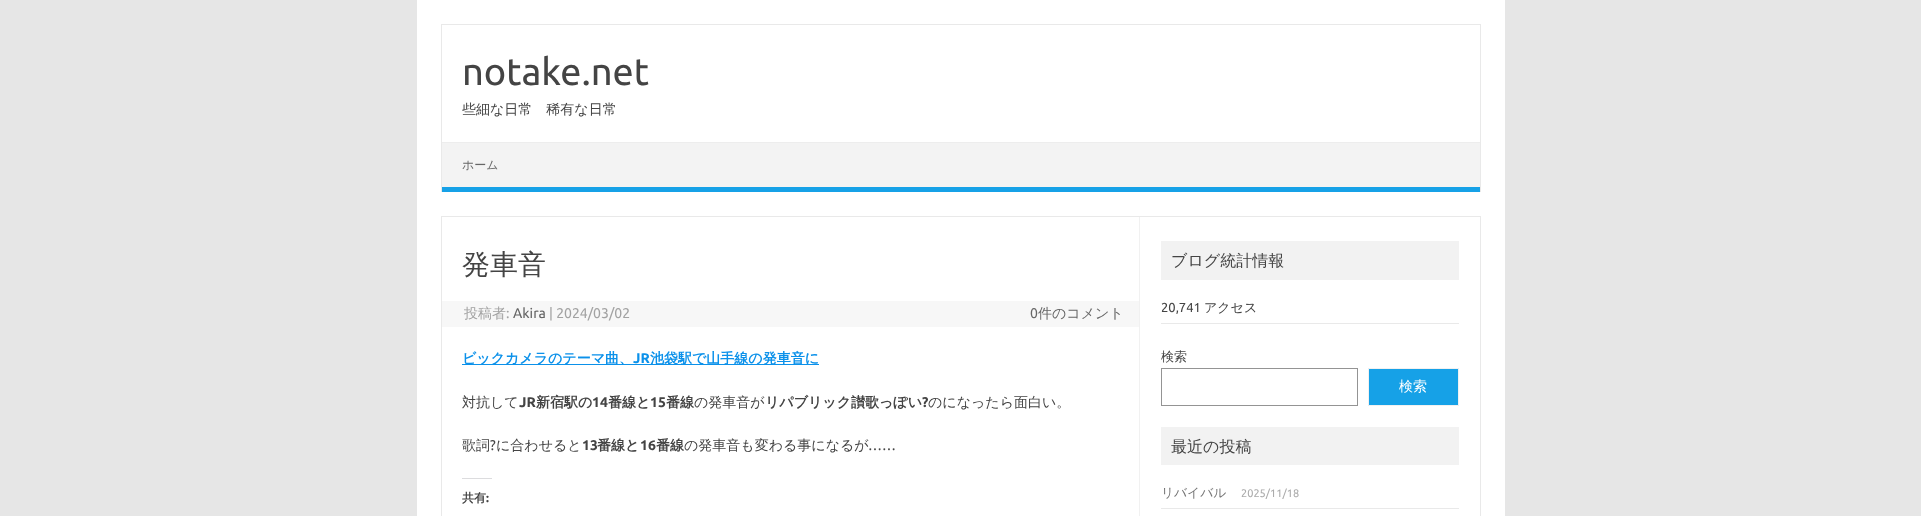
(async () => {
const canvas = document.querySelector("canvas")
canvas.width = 1921
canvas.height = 516
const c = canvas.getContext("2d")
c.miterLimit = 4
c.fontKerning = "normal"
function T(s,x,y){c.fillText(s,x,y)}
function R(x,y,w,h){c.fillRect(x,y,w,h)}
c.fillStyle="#e6e6e6"
R(0,0,1921,516)
c.fillStyle="#fff"
R(417,0,1088,516)
c.fillStyle="#e9e9e9"
R(441,24,1040,1)
R(1480,24,1,168)
R(441,24,1,168)
c.font="38px Ubuntu"
c.fillStyle="#444"
T("notake.net",462,85)
c.font="500 14px WenQuanYi Zen Hei"
T("些細な日常　稀有な日常",462,114)
c.fillStyle="#f3f3f3"
R(442,143,1038,44)
c.fillStyle="#ededed"
R(442,142,1038,1)
c.fillStyle="#16a1e7"
R(442,187,1038,5)
c.font="500 12px WenQuanYi Zen Hei"
c.fillStyle="#666"
T("ホーム",462,169)
c.strokeStyle="#e9e9e9"
c.strokeRect(441.5,216.5,1039,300)
c.fillStyle="#f1f1f1"
R(1139,217,1,299)
c.font="500 28px WenQuanYi Zen Hei"
c.fillStyle="#444"
T("発車音",462,274)
c.fillStyle="#f7f7f7"
R(442,301,697,26)
c.font="500 14px WenQuanYi Zen Hei"
c.fillStyle="#a2a2a2"
T("投稿者",464,318)
c.font="14px Ubuntu"
T(":",506,318)
c.fillStyle="#666"
T("Akira",513,318)
c.fillStyle="#a2a2a2"
T("| 2024/03/02",549,318)
c.fillStyle="#666"
T("0",1030,318)
c.font="500 14px WenQuanYi Zen Hei"
T("件のコメント",1038,318)
c.fillStyle="#0b91ea"
R(462,364,357,1)
c.font="bold 14px WenQuanYi Zen Hei"
T("ビックカメラのテーマ曲、",462,363)
c.font="bold 14px Ubuntu"
T("JR",633,363)
c.font="bold 14px WenQuanYi Zen Hei"
T("池袋駅で山手線の発車音に",650,363)
c.font="500 14px WenQuanYi Zen Hei"
c.fillStyle="#444"
T("対抗して",462,407)
c.font="bold 14px Ubuntu"
T("JR",519,407)
c.font="bold 14px WenQuanYi Zen Hei"
T("新宿駅の",536,407)
c.font="bold 14px Ubuntu"
T("14",592,407)
c.font="bold 14px WenQuanYi Zen Hei"
T("番線と",608,407)
c.font="bold 14px Ubuntu"
T("15",650,407)
c.font="bold 14px WenQuanYi Zen Hei"
T("番線",666,407)
c.font="500 14px WenQuanYi Zen Hei"
T("の発車音が",694,407)
c.font="bold 14px WenQuanYi Zen Hei"
T("リパブリック讃歌っぽい",765,407)
c.font="bold 14px Ubuntu"
T("?",922,407)
c.font="500 14px WenQuanYi Zen Hei"
T("のになったら面白い。",928,407)
T("歌詞",462,450)
c.font="14px Ubuntu"
T("?",490,450)
c.font="500 14px WenQuanYi Zen Hei"
T("に合わせると",496,450)
c.font="bold 14px Ubuntu"
T("13",582,450)
c.font="bold 14px WenQuanYi Zen Hei"
T("番線と",597,450)
c.font="bold 14px Ubuntu"
T("16",640,450)
c.font="bold 14px WenQuanYi Zen Hei"
T("番線",656,450)
c.font="500 14px WenQuanYi Zen Hei"
T("の発車音も変わる事になるが",684,450)
c.font="14px Ubuntu"
T("……",868,450)
c.fillStyle="#dcdcde"
R(462,478,30,1)
c.font="bold 12px WenQuanYi Zen Hei"
c.fillStyle="#444"
T("共有",462,502)
c.font="bold 12px Ubuntu"
T(":",486,502)
c.fillStyle="#f2f2f2"
R(1161,241,298,39)
c.font="500 16px WenQuanYi Zen Hei"
c.fillStyle="#444"
T("ブログ統計情報",1171,266)
c.fillStyle="#e9e9e9"
R(1161,323,298,1)
c.font="13px Ubuntu"
c.fillStyle="#444"
T("20,741",1161,312)
c.font="500 13px WenQuanYi Zen Hei"
T("アクセス",1204,312)
T("検索",1161,361)
c.strokeStyle="#949494"
c.strokeRect(1161.5,368.5,196,37)
c.fillStyle="#16a1e7"
c.beginPath()
c.rect(1368.5,368.5,90,37)
c.fill()
c.strokeStyle="#f1f1f1"
c.stroke()
c.font="500 14px WenQuanYi Zen Hei"
c.fillStyle="#fff"
T("検索",1399,391)
c.fillStyle="#f2f2f2"
R(1161,427,298,38)
c.font="500 16px WenQuanYi Zen Hei"
c.fillStyle="#444"
T("最近の投稿",1171,452)
c.fillStyle="#e9e9e9"
R(1161,508,298,1)
c.font="500 12.75px WenQuanYi Zen Hei"
c.fillStyle="#757575"
T("リバイバル",1161,497)
c.font="11px Ubuntu"
c.fillStyle="#aaa"
T("2025/11/18",1241,497)
})()
